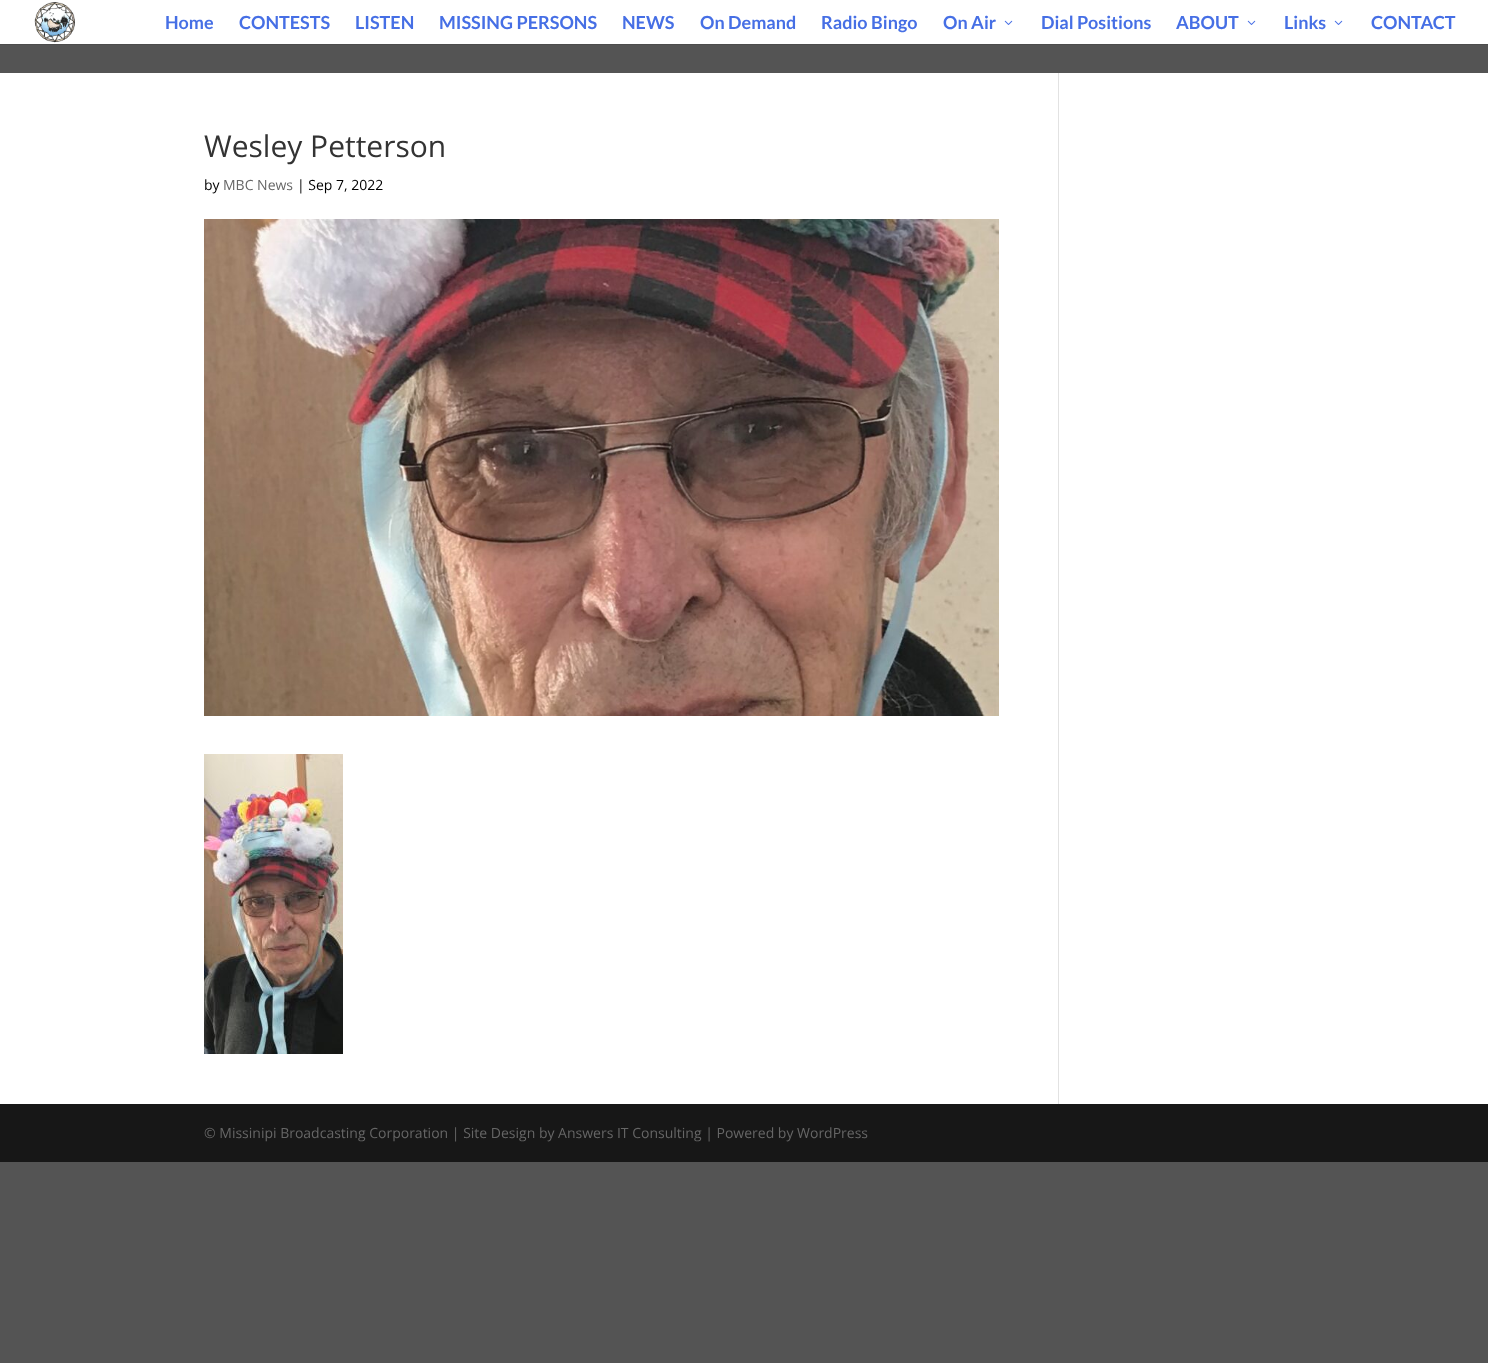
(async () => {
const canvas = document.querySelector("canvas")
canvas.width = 1488
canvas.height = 1363
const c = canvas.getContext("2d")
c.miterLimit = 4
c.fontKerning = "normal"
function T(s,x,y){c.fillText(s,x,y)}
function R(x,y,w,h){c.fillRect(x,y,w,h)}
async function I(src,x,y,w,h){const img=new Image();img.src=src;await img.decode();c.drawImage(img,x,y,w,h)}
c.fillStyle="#545454"
R(0,0,1488,1363)
c.fillStyle="#4c4c4c"
R(0,44,1488,1)
c.fillStyle="#fff"
R(0,0,1488,44)
await I("1.png",34,2,41,41)
c.font="bold 18px Lato"
c.fillStyle="#466fe5"
T("Home",165,29)
T("CONTESTS",239,29)
T("LISTEN",355,29)
T("MISSING PERSONS",439,29)
T("NEWS",622,29)
T("On Demand",700,29)
T("Radio Bingo",821,29)
T("On Air",943,29)
await I("2.png",1004,20,9,5)
T("Dial Positions",1041,29)
T("ABOUT",1176,29)
await I("2.png",1247,20,9,5)
T("Links",1284,29)
await I("2.png",1334,20,9,5)
T("CONTACT",1371,29)
c.fillStyle="#fff"
R(0,73,1488,1031)
c.font="30px Open Sans"
c.fillStyle="#333"
T("Wesley Petterson",204,157)
c.font="14px Open Sans"
c.fillStyle="#000"
T("by",204,190)
c.fillStyle="#666"
T("MBC News",223,190)
c.fillStyle="#000"
T("| Sep 7, 2022",297,190)
await I("3.png",204,219,795,497)
await I("4.png",204,754,139,300)
c.fillStyle="#e2e2e2"
R(1058,73,1,1031)
c.fillStyle="#171717"
R(0,1104,1488,58)
c.fillStyle="#666"
T("© Missinipi Broadcasting Corporation | Site Design by Answers IT Consulting | Powered by WordPress",204,1138)
})()
